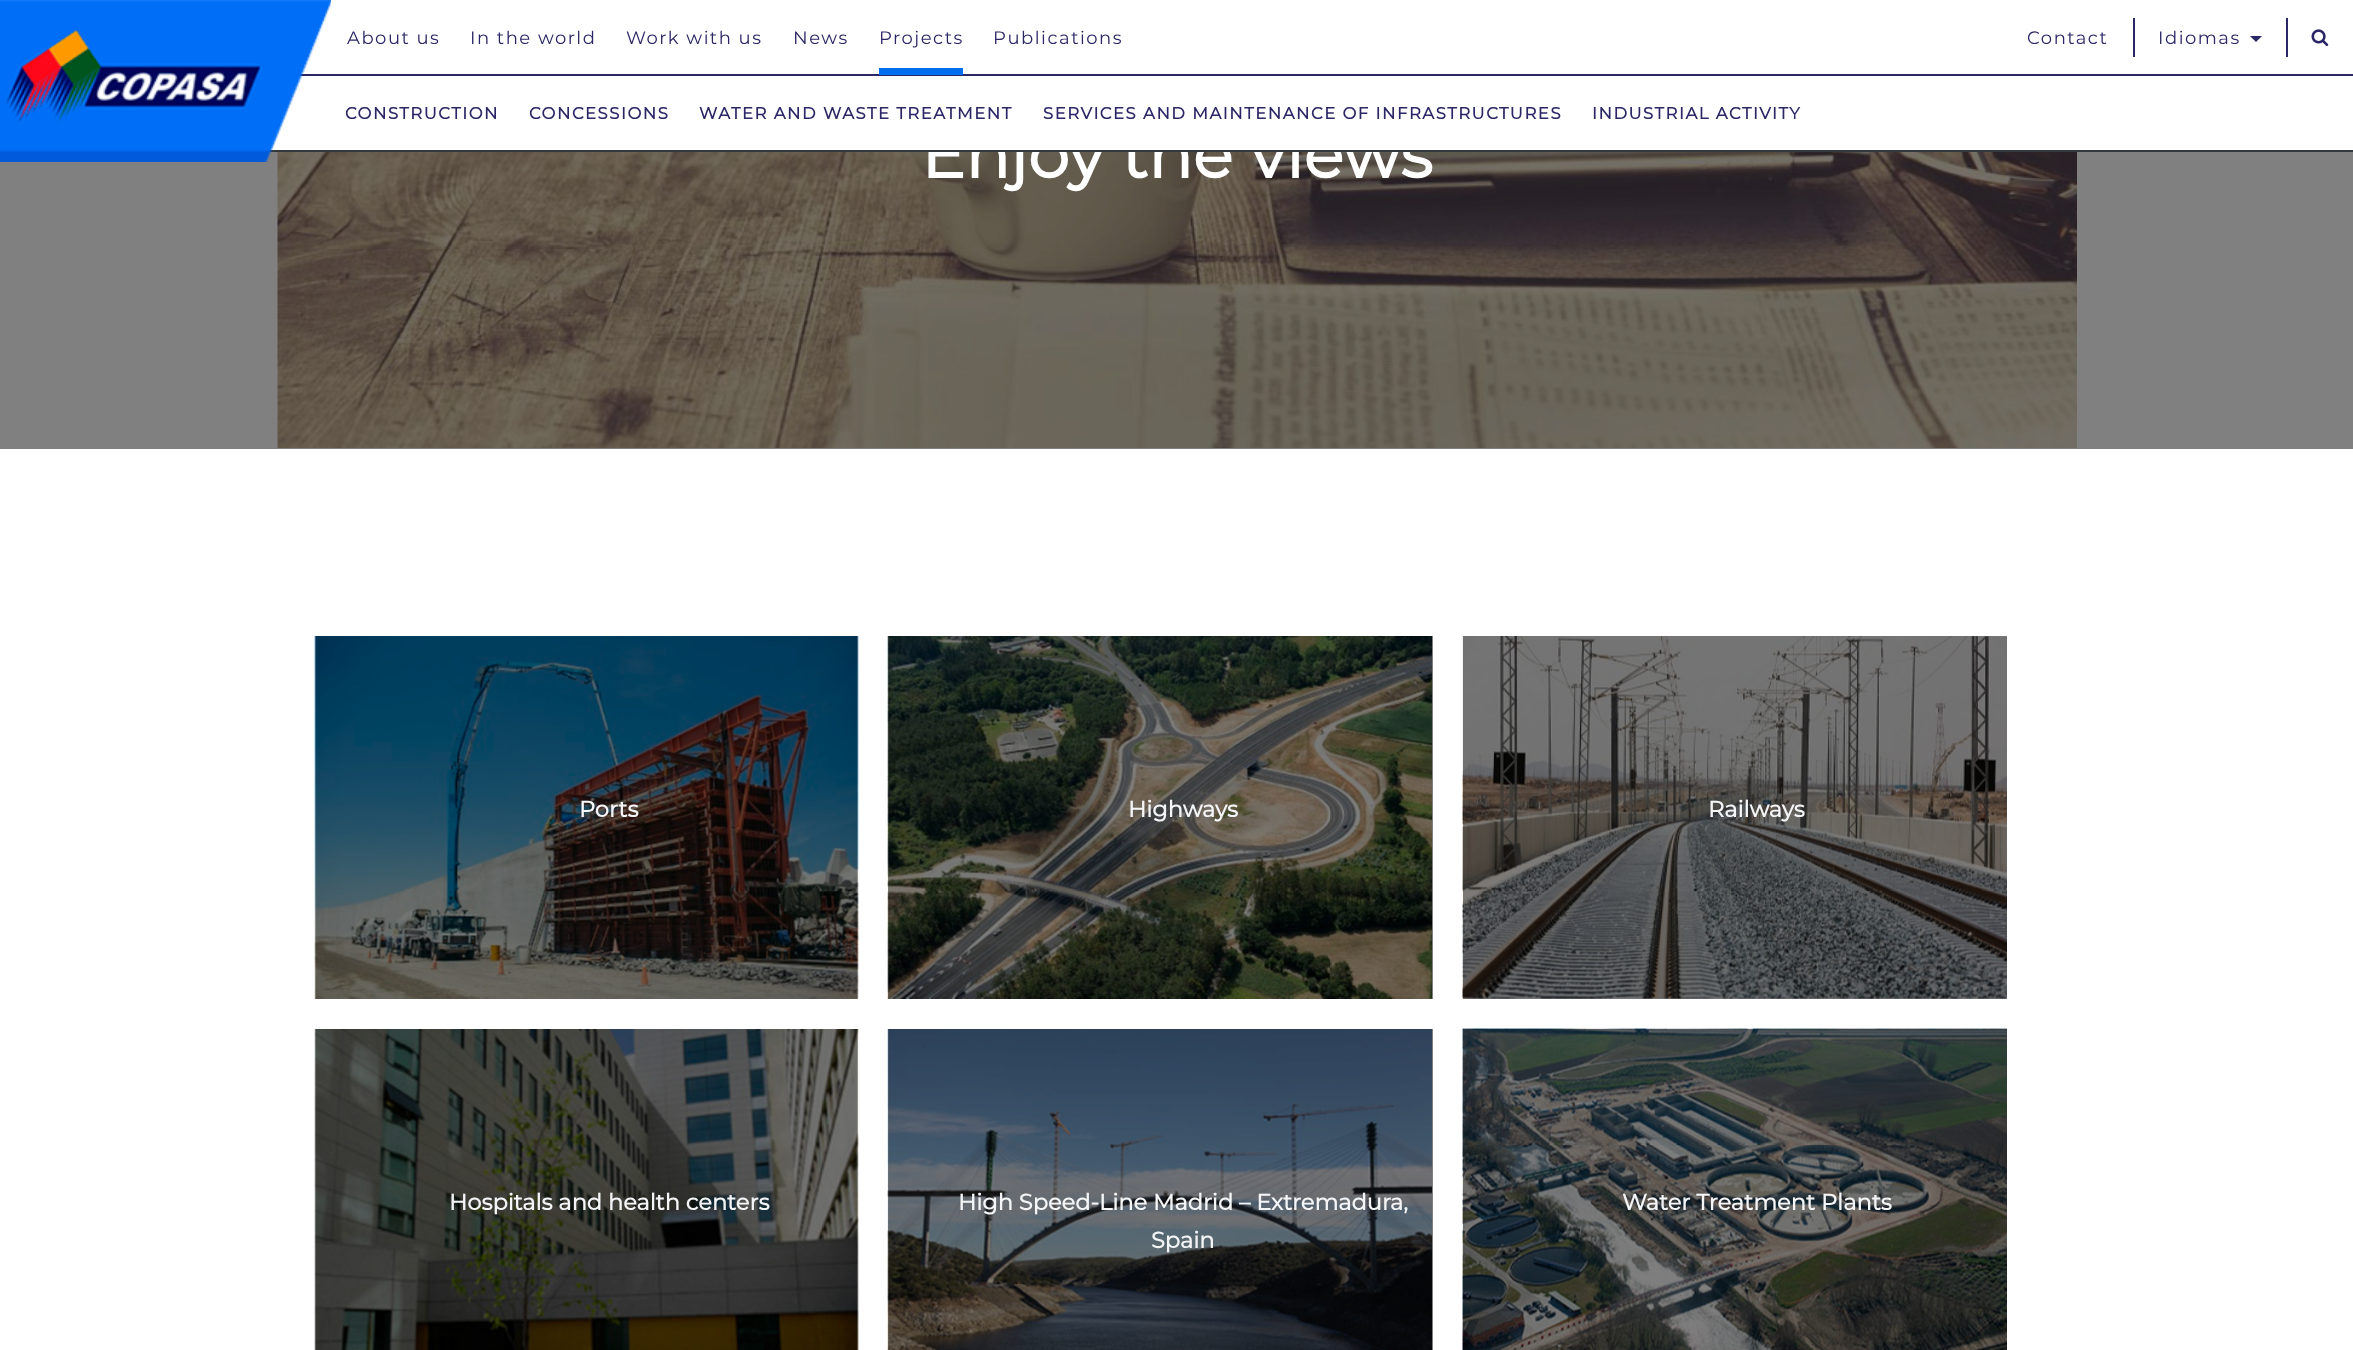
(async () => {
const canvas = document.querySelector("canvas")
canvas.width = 2353
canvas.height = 1350
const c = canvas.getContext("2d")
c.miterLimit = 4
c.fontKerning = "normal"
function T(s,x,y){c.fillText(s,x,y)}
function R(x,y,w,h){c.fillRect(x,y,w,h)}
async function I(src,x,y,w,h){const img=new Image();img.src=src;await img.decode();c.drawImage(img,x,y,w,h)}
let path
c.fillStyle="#fff"
R(0,0,2353,1350)
c.fillStyle="#808080"
R(888,1029,545,321)
R(1463,998,544,1)
R(888,636,545,363)
R(0,152,2353,297)
await I("3.png",277,152,1800,296)
c.font="bold 66px Montserrat"
c.fillStyle="#fff"
T("Enjoy the views",921,178)
c.fillStyle="#33383f"
R(268,150,2085,2)
c.fillStyle="#2b2666"
R(299,74,2054,2)
await I("1.png",0,0,331,162)
c.letterSpacing="1.5px"
c.font="100 18px Montserrat"
T("About us",347,44)
T("In the world",470,44)
T("Work with us",626,44)
T("News",793,44)
c.fillStyle="#006eef"
R(879,68,84,7)
c.fillStyle="#2b2666"
T("Projects",879,44)
T("Publications",993,44)
R(2133,18,2,39)
T("Contact",2027,44)
R(2286,18,2,39)
T("Idiomas",2158,44)
path = new Path2D("M2250 36h12l-6 6z")
c.fill(path)
await I("2.png",2311,29,18,17)
c.font="bold 16.5px Montserrat"
T("CONSTRUCTION",345,119)
T("CONCESSIONS",529,119)
T("WATER AND WASTE TREATMENT",699,119)
T("SERVICES AND MAINTENANCE OF INFRASTRUCTURES",1043,119)
T("INDUSTRIAL ACTIVITY",1592,119)
await I("4.png",314,636,545,363)
c.letterSpacing="0px"
c.font="bold 22.5px Montserrat"
c.fillStyle="#f4f5f7"
T("Ports",579,817)
await I("5.png",887,636,545,363)
T("Highways",1128,817)
await I("6.png",1462,636,545,363)
T("Railways",1708,817)
await I("7.png",314,1029,545,321)
T("Hospitals and health centers",449,1210)
await I("8.png",887,1029,545,321)
T("High Speed-Line Madrid – Extremadura,",958,1210)
T("Spain",1151,1248)
await I("9.png",1462,1028,545,322)
T("Water Treatment Plants",1622,1210)
})()
